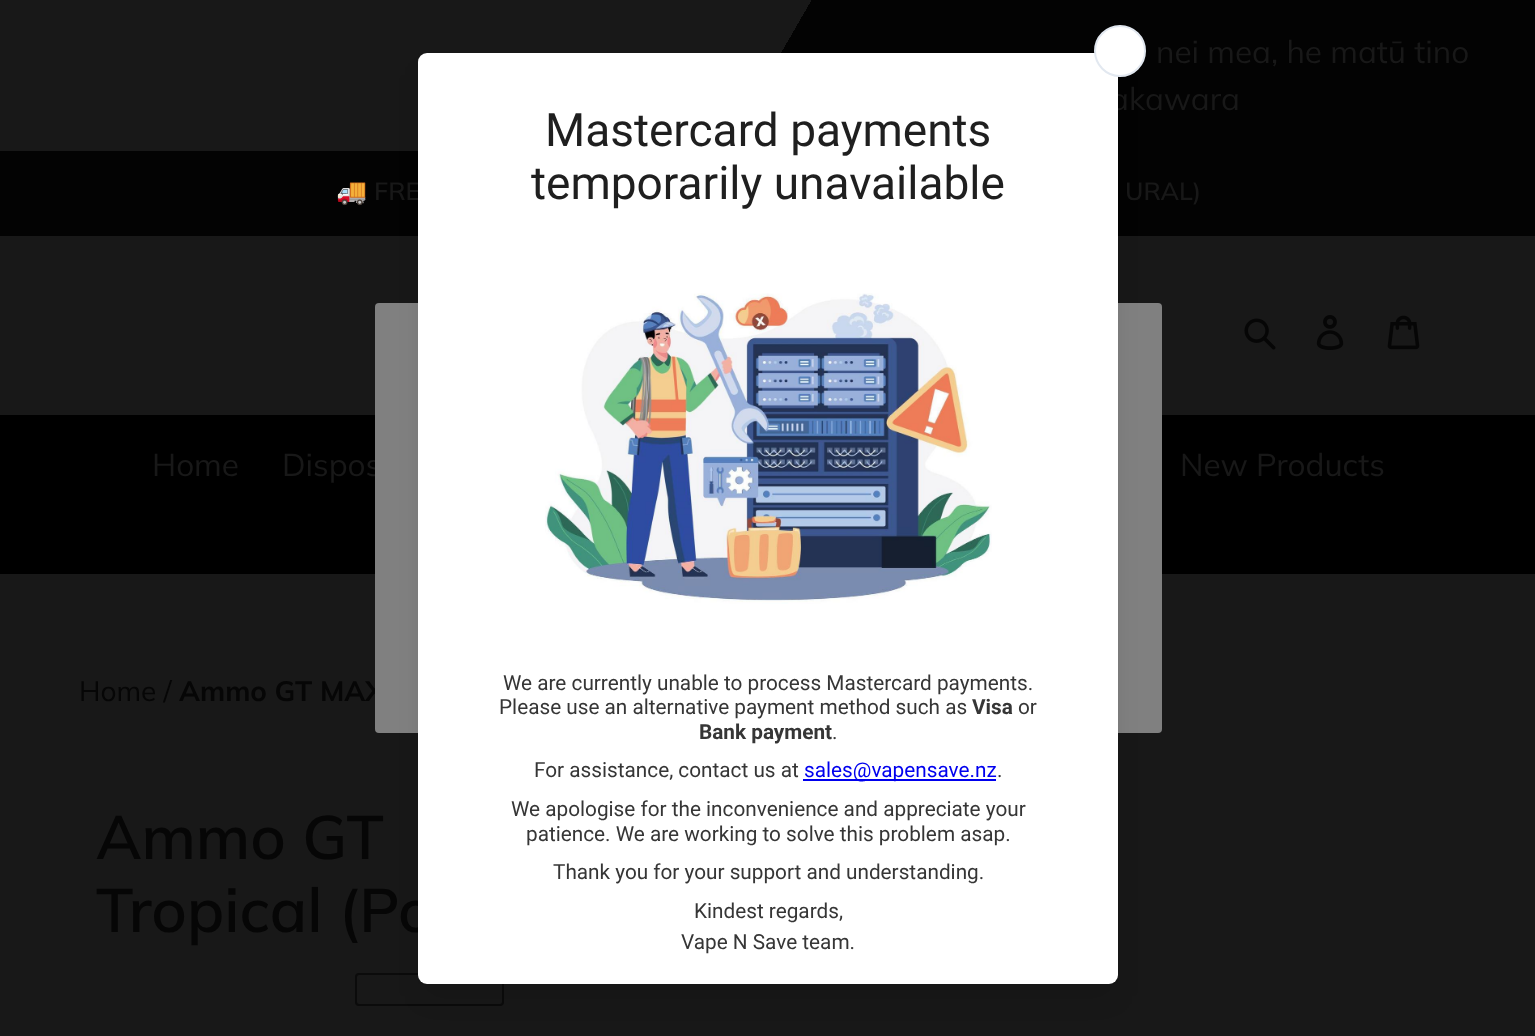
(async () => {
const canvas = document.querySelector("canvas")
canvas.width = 1535
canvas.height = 1036
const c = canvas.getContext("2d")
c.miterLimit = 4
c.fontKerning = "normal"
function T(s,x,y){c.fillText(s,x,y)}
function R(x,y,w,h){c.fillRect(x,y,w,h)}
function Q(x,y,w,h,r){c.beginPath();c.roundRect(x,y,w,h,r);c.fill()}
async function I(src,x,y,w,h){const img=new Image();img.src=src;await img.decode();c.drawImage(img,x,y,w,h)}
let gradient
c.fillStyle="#181818"
R(0,0,1535,1036)
gradient = c.createLinearGradient(159,-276,1377,427)
gradient.addColorStop(.5,"#181818")
gradient.addColorStop(.5,"#030303")
c.fillStyle = gradient
R(725,0,810,151)
c.font="31.5px Muli"
c.fillStyle="#181818"
T("nei mea, he matū tino",1156,63)
T("akawara",1110,110)
c.fillStyle="#030303"
R(0,151,1535,85)
c.font="bold 25px Noto Color Emoji"
c.fillStyle="#181818"
T("🚚",336,200)
c.font="600 25px Muli"
T("FRE",374,200)
T("URAL)",1125,200)
await I("1.png",1244,318,32,32)
await I("2.png",1316,315,28,35)
await I("3.png",1387,315,33,35)
c.fillStyle="#000"
R(0,415,1535,159)
c.font="31.5px Muli"
c.fillStyle="#181818"
T("Home",152,476)
T("Dispos",282,476)
T("New Products",1180,476)
c.font="bold 28px Muli"
c.fillStyle="#060606"
T("Ammo GT MAX",179,701)
c.fillStyle="#808080"
Q(375,303,787,430,4)
c.beginPath()
c.roundRect(356,974,147,31,3)
c.strokeStyle="#0b0b0b"
c.lineWidth=2
c.stroke()
c.fillStyle="#0000001a"
c.filter="blur(13px)"
c.beginPath()
c.roundRect(424,75,689,921,4)
c.fill()
c.filter="none"
c.save()
c.beginPath()
c.rect(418,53,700,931)
c.clip()
c.fillStyle="#0000001f"
c.filter="blur(17.5px)"
c.beginPath()
c.roundRect(424,58,689,920,4)
c.fill()
c.filter="none"
c.restore()
c.font="600 61.25px Muli"
c.fillStyle="#060606"
T("Tropical (Po",96,932)
c.fillStyle="#fff"
Q(418,53,700,931,9)
c.beginPath()
c.arc(1120,51,25,0,7)
c.fill()
c.strokeStyle="#e2e8f0"
c.stroke()
c.font="46px Roboto"
c.fillStyle="#1f1f1f"
T("Mastercard payments",545,146)
T("temporarily unavailable",531,199)
await I("4.png",545,293,447,311)
c.font="20.75px Roboto"
c.fillStyle="#363636"
T("We are currently unable to process Mastercard payments.",503,690)
T("Please use an alternative payment method such as",499,714)
c.font="bold 20.75px Roboto"
T("Visa",972,714)
c.font="20.75px Roboto"
T("or",1018,714)
c.font="bold 20.75px Roboto"
T("Bank payment",699,739)
c.font="20.75px Roboto"
T(".",832,739)
T("For assistance, contact us at",534,777)
c.fillStyle="#00e"
R(803,779,193,2)
T("sales@vapensave.nz",804,777)
c.fillStyle="#363636"
T(".",997,777)
T("We apologise for the inconvenience and appreciate your",511,816)
T("patience. We are working to solve this problem asap.",526,841)
T("Thank you for your support and understanding.",553,879)
T("Kindest regards,",694,918)
T("Vape N Save team.",681,949)
c.font="28px Muli"
c.fillStyle="#060606"
T("Home /",79,701)
c.font="600 61.25px Muli"
T("Ammo GT",96,859)
})()
